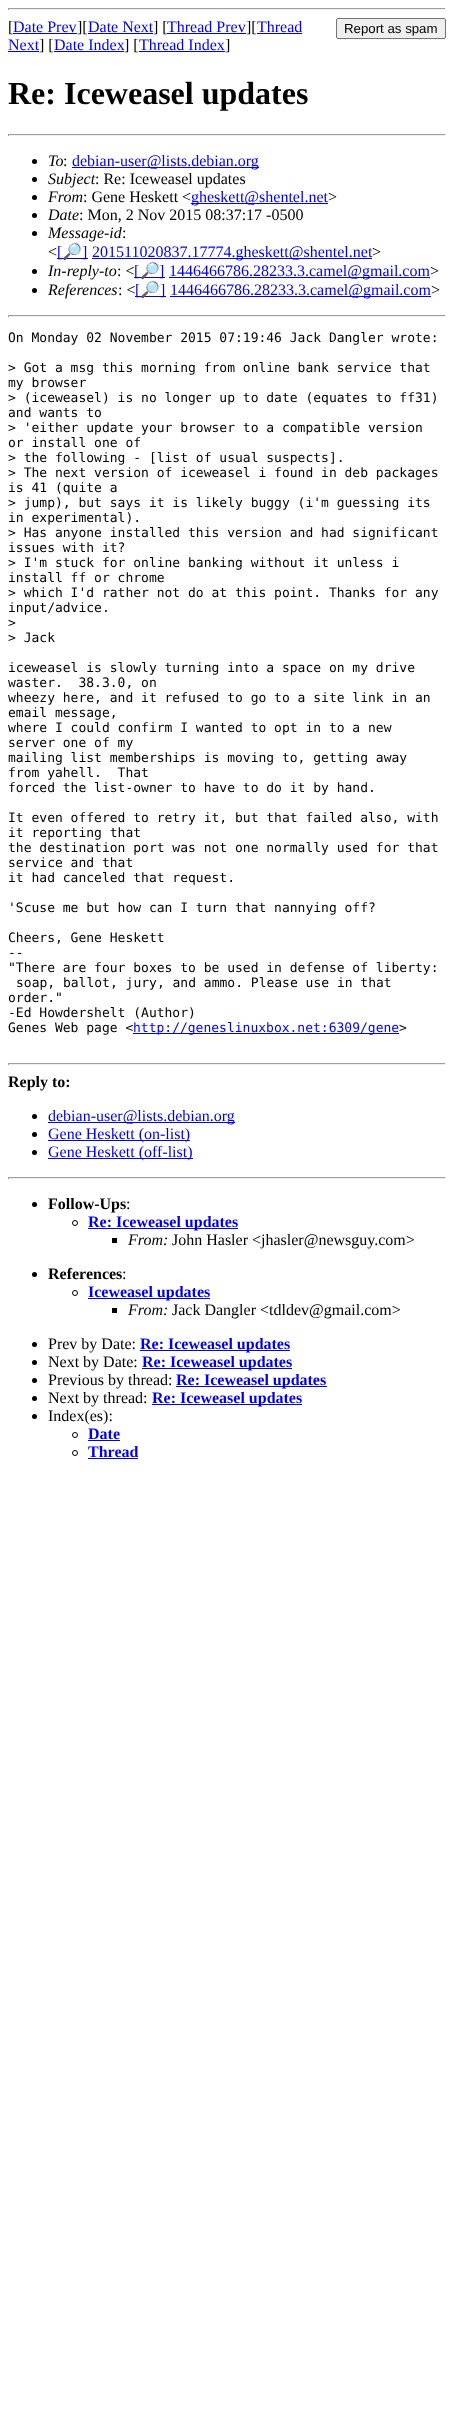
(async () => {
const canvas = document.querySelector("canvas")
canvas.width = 454
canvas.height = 2415
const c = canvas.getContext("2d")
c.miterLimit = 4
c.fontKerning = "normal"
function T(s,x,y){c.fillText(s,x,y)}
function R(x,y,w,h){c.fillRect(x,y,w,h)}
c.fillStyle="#fff"
R(0,0,454,2415)
c.fillStyle="#9f9f9f"
R(8,8,438,1)
c.fillStyle="#eee"
R(445,8,1,2)
R(8,9,438,1)
c.fillStyle="#9f9f9f"
R(8,8,1,2)
c.font="16px Liberation Serif"
c.fillStyle="#000"
T("[",8,32)
c.fillStyle="#00e"
T("Date Prev",13,32)
R(13,33,64,1)
c.fillStyle="#000"
T("][",77,32)
c.fillStyle="#00e"
T("Date Next",88,32)
R(88,33,65,1)
c.fillStyle="#000"
T("] [",153,32)
c.fillStyle="#00e"
T("Thread Prev",167,32)
R(167,33,79,1)
c.fillStyle="#000"
T("][",246,32)
c.fillStyle="#00e"
T("Thread",257,32)
R(257,33,45,1)
c.fillStyle="#efefef"
c.beginPath()
c.roundRect(336.5,18.5,109,20,1.5)
c.fill()
c.strokeStyle="#767676"
c.stroke()
c.font="13.25px Liberation Sans"
c.fillStyle="#000"
T("Report as spam",344,33)
c.font="16px Liberation Serif"
c.fillStyle="#00e"
T("Next",8,50)
R(8,51,31,1)
c.fillStyle="#000"
T("] [",39,50)
c.fillStyle="#00e"
T("Date Index",54,50)
R(54,51,70,1)
c.fillStyle="#000"
T("] [",124,50)
c.fillStyle="#00e"
T("Thread Index",139,50)
R(139,51,86,1)
c.fillStyle="#000"
T("]",225,50)
c.font="bold 32px Liberation Serif"
T("Re: Iceweasel updates",8,104)
c.fillStyle="#9f9f9f"
R(8,134,438,1)
c.fillStyle="#eee"
R(445,134,1,2)
R(8,135,438,1)
c.fillStyle="#9f9f9f"
R(8,134,1,2)
c.fillStyle="#000"
c.beginPath()
c.arc(34.5,161.5,2.5,0,7)
c.fill()
c.font="italic 16px Liberation Serif"
T("To",48,166)
c.font="16px Liberation Serif"
T(":",63,166)
c.fillStyle="#00e"
R(72,167,187,1)
T("debian-user@lists.debian.org",72,166)
c.fillStyle="#000"
c.beginPath()
c.arc(34.5,179.5,2.5,0,7)
c.fill()
c.font="italic 16px Liberation Serif"
T("Subject",48,184)
c.font="16px Liberation Serif"
T(": Re: Iceweasel updates",95,184)
c.beginPath()
c.arc(34.5,197.5,2.5,0,7)
c.fill()
c.font="italic 16px Liberation Serif"
T("From",48,202)
c.font="16px Liberation Serif"
T(": Gene Heskett <",83,202)
c.fillStyle="#00e"
R(191,203,137,1)
T("gheskett@shentel.net",191,202)
c.fillStyle="#000"
T(">",328,202)
c.beginPath()
c.arc(34.5,215.5,2.5,0,7)
c.fill()
c.font="italic 16px Liberation Serif"
T("Date",48,220)
c.font="16px Liberation Serif"
T(": Mon, 2 Nov 2015 08:37:17 -0500",79,220)
c.beginPath()
c.arc(34.5,233.5,2.5,0,7)
c.fill()
c.font="italic 16px Liberation Serif"
T("Message-id",48,238)
c.font="16px Liberation Serif"
T(":",122,238)
T("<",48,257)
c.fillStyle="#00e"
R(57,258,31,1)
T("[",57,257)
c.font="16px Noto Color Emoji"
T("🔎",62,257)
c.font="16px Liberation Serif"
T("]",82,257)
R(92,258,280,1)
T("201511020837.17774.gheskett@shentel.net",92,257)
c.fillStyle="#000"
T(">",372,257)
c.beginPath()
c.arc(34.5,271.5,2.5,0,7)
c.fill()
c.font="italic 16px Liberation Serif"
T("In-reply-to",48,276)
c.font="16px Liberation Serif"
T(": <",117,276)
c.fillStyle="#00e"
R(134,277,31,1)
T("[",134,276)
c.font="16px Noto Color Emoji"
T("🔎",140,276)
c.font="16px Liberation Serif"
T("]",159,276)
R(169,277,261,1)
T("1446466786.28233.3.camel@gmail.com",169,276)
c.fillStyle="#000"
T(">",430,276)
c.beginPath()
c.arc(34.5,290.5,2.5,0,7)
c.fill()
c.font="italic 16px Liberation Serif"
T("References",48,295)
c.font="16px Liberation Serif"
T(": <",118,295)
c.fillStyle="#00e"
R(135,296,31,1)
T("[",135,295)
c.font="16px Noto Color Emoji"
T("🔎",140,295)
c.font="16px Liberation Serif"
T("]",160,295)
R(170,296,261,1)
T("1446466786.28233.3.camel@gmail.com",170,295)
c.fillStyle="#000"
T(">",431,295)
c.fillStyle="#9f9f9f"
R(8,315,438,1)
c.fillStyle="#eee"
R(445,315,1,2)
R(8,316,438,1)
c.fillStyle="#9f9f9f"
R(8,315,1,2)
c.font="13px DejaVu Sans Mono"
c.fillStyle="#000"
T("On Monday 02 November 2015 07:19:46 Jack Dangler wrote:",8,342)
T("> Got a msg this morning from online bank service that",8,372)
T("my browser",8,387)
T("> (iceweasel) is no longer up to date (equates to ff31)",8,402)
T("and wants to",8,417)
T("> 'either update your browser to a compatible version",8,432)
T("or install one of",8,447)
T("> the following - [list of usual suspects].",8,462)
T("> The next version of iceweasel i found in deb packages",8,477)
T("is 41 (quite a",8,492)
T("> jump), but says it is likely buggy (i'm guessing its",8,507)
T("in experimental).",8,522)
T("> Has anyone installed this version and had significant",8,537)
T("issues with it?",8,552)
T("> I'm stuck for online banking without it unless i",8,567)
T("install ff or chrome",8,582)
T("> which I'd rather not do at this point. Thanks for any",8,597)
T("input/advice.",8,612)
T(">",8,627)
T("> Jack",8,642)
T("iceweasel is slowly turning into a space on my drive",8,672)
T("waster.  38.3.0, on",8,687)
T("wheezy here, and it refused to go to a site link in an",8,702)
T("email message,",8,717)
T("where I could confirm I wanted to opt in to a new",8,732)
T("server one of my",8,747)
T("mailing list memberships is moving to, getting away",8,762)
T("from yahell.  That",8,777)
T("forced the list-owner to have to do it by hand.",8,792)
T("It even offered to retry it, but that failed also, with",8,822)
T("it reporting that",8,837)
T("the destination port was not one normally used for that",8,852)
T("service and that",8,867)
T("it had canceled that request.",8,882)
T("'Scuse me but how can I turn that nannying off?",8,912)
T("Cheers, Gene Heskett",8,942)
T("--",8,957)
T("\"There are four boxes to be used in defense of liberty:",8,972)
T("soap, ballot, jury, and ammo. Please use in that",16,987)
T("order.\"",8,1002)
T("-Ed Howdershelt (Author)",8,1017)
T("Genes Web page <",8,1032)
c.fillStyle="#00e"
R(133,1033,266,1)
T("http://geneslinuxbox.net:6309/gene",133,1032)
c.fillStyle="#000"
T(">",399,1032)
c.fillStyle="#9f9f9f"
R(8,1063,438,1)
c.fillStyle="#eee"
R(445,1063,1,2)
R(8,1064,438,1)
c.fillStyle="#9f9f9f"
R(8,1063,1,2)
c.font="bold 16px Liberation Serif"
c.fillStyle="#000"
T("Reply to:",8,1087)
c.beginPath()
c.arc(34.5,1116.5,2.5,0,7)
c.fill()
c.fillStyle="#00e"
R(48,1122,187,1)
c.font="16px Liberation Serif"
T("debian-user@lists.debian.org",48,1121)
c.fillStyle="#000"
c.beginPath()
c.arc(34.5,1134.5,2.5,0,7)
c.fill()
c.fillStyle="#00e"
R(48,1140,142,1)
T("Gene Heskett (on-list)",48,1139)
c.fillStyle="#000"
c.beginPath()
c.arc(34.5,1152.5,2.5,0,7)
c.fill()
c.fillStyle="#00e"
R(48,1158,145,1)
T("Gene Heskett (off-list)",48,1157)
c.fillStyle="#9f9f9f"
R(8,1177,438,1)
c.fillStyle="#eee"
R(445,1177,1,2)
R(8,1178,438,1)
c.fillStyle="#9f9f9f"
R(8,1177,1,2)
c.fillStyle="#000"
c.beginPath()
c.arc(34.5,1204.5,2.5,0,7)
c.fill()
c.font="bold 16px Liberation Serif"
T("Follow-Ups",48,1209)
c.font="16px Liberation Serif"
T(":",126,1209)
c.beginPath()
c.arc(75,1223,2.5,0,7)
c.strokeStyle="#000"
c.stroke()
c.fillStyle="#00e"
R(88,1228,150,1)
c.font="bold 16px Liberation Serif"
T("Re: Iceweasel updates",88,1227)
c.fillStyle="#000"
R(112,1238,5,5)
c.font="italic 16px Liberation Serif"
T("From:",128,1245)
c.font="16px Liberation Serif"
T("John Hasler <jhasler@newsguy.com>",172,1245)
c.beginPath()
c.arc(34.5,1274.5,2.5,0,7)
c.fill()
c.font="bold 16px Liberation Serif"
T("References",48,1279)
c.font="16px Liberation Serif"
T(":",122,1279)
c.beginPath()
c.arc(75,1293,2.5,0,7)
c.stroke()
c.fillStyle="#00e"
R(88,1298,122,1)
c.font="bold 16px Liberation Serif"
T("Iceweasel updates",88,1297)
c.fillStyle="#000"
R(112,1308,5,5)
c.font="italic 16px Liberation Serif"
T("From:",128,1315)
c.font="16px Liberation Serif"
T("Jack Dangler <tdldev@gmail.com>",172,1315)
c.beginPath()
c.arc(34.5,1344.5,2.5,0,7)
c.fill()
T("Prev by Date:",48,1349)
c.fillStyle="#00e"
R(140,1350,150,1)
c.font="bold 16px Liberation Serif"
T("Re: Iceweasel updates",140,1349)
c.fillStyle="#000"
c.beginPath()
c.arc(34.5,1362.5,2.5,0,7)
c.fill()
c.font="16px Liberation Serif"
T("Next by Date:",48,1367)
c.fillStyle="#00e"
R(142,1368,150,1)
c.font="bold 16px Liberation Serif"
T("Re: Iceweasel updates",142,1367)
c.fillStyle="#000"
c.beginPath()
c.arc(34.5,1380.5,2.5,0,7)
c.fill()
c.font="16px Liberation Serif"
T("Previous by thread:",48,1385)
c.fillStyle="#00e"
R(176,1386,151,1)
c.font="bold 16px Liberation Serif"
T("Re: Iceweasel updates",176,1385)
c.fillStyle="#000"
c.beginPath()
c.arc(34.5,1398.5,2.5,0,7)
c.fill()
c.font="16px Liberation Serif"
T("Next by thread:",48,1403)
c.fillStyle="#00e"
R(152,1404,150,1)
c.font="bold 16px Liberation Serif"
T("Re: Iceweasel updates",152,1403)
c.fillStyle="#000"
c.beginPath()
c.arc(34.5,1416.5,2.5,0,7)
c.fill()
c.font="16px Liberation Serif"
T("Index(es):",48,1421)
c.beginPath()
c.arc(75,1435,2.5,0,7)
c.stroke()
c.font="bold 16px Liberation Serif"
c.fillStyle="#00e"
T("Date",88,1439)
R(88,1440,32,1)
c.beginPath()
c.arc(75,1453,2.5,0,7)
c.stroke()
T("Thread",88,1457)
R(88,1458,50,1)
})()
